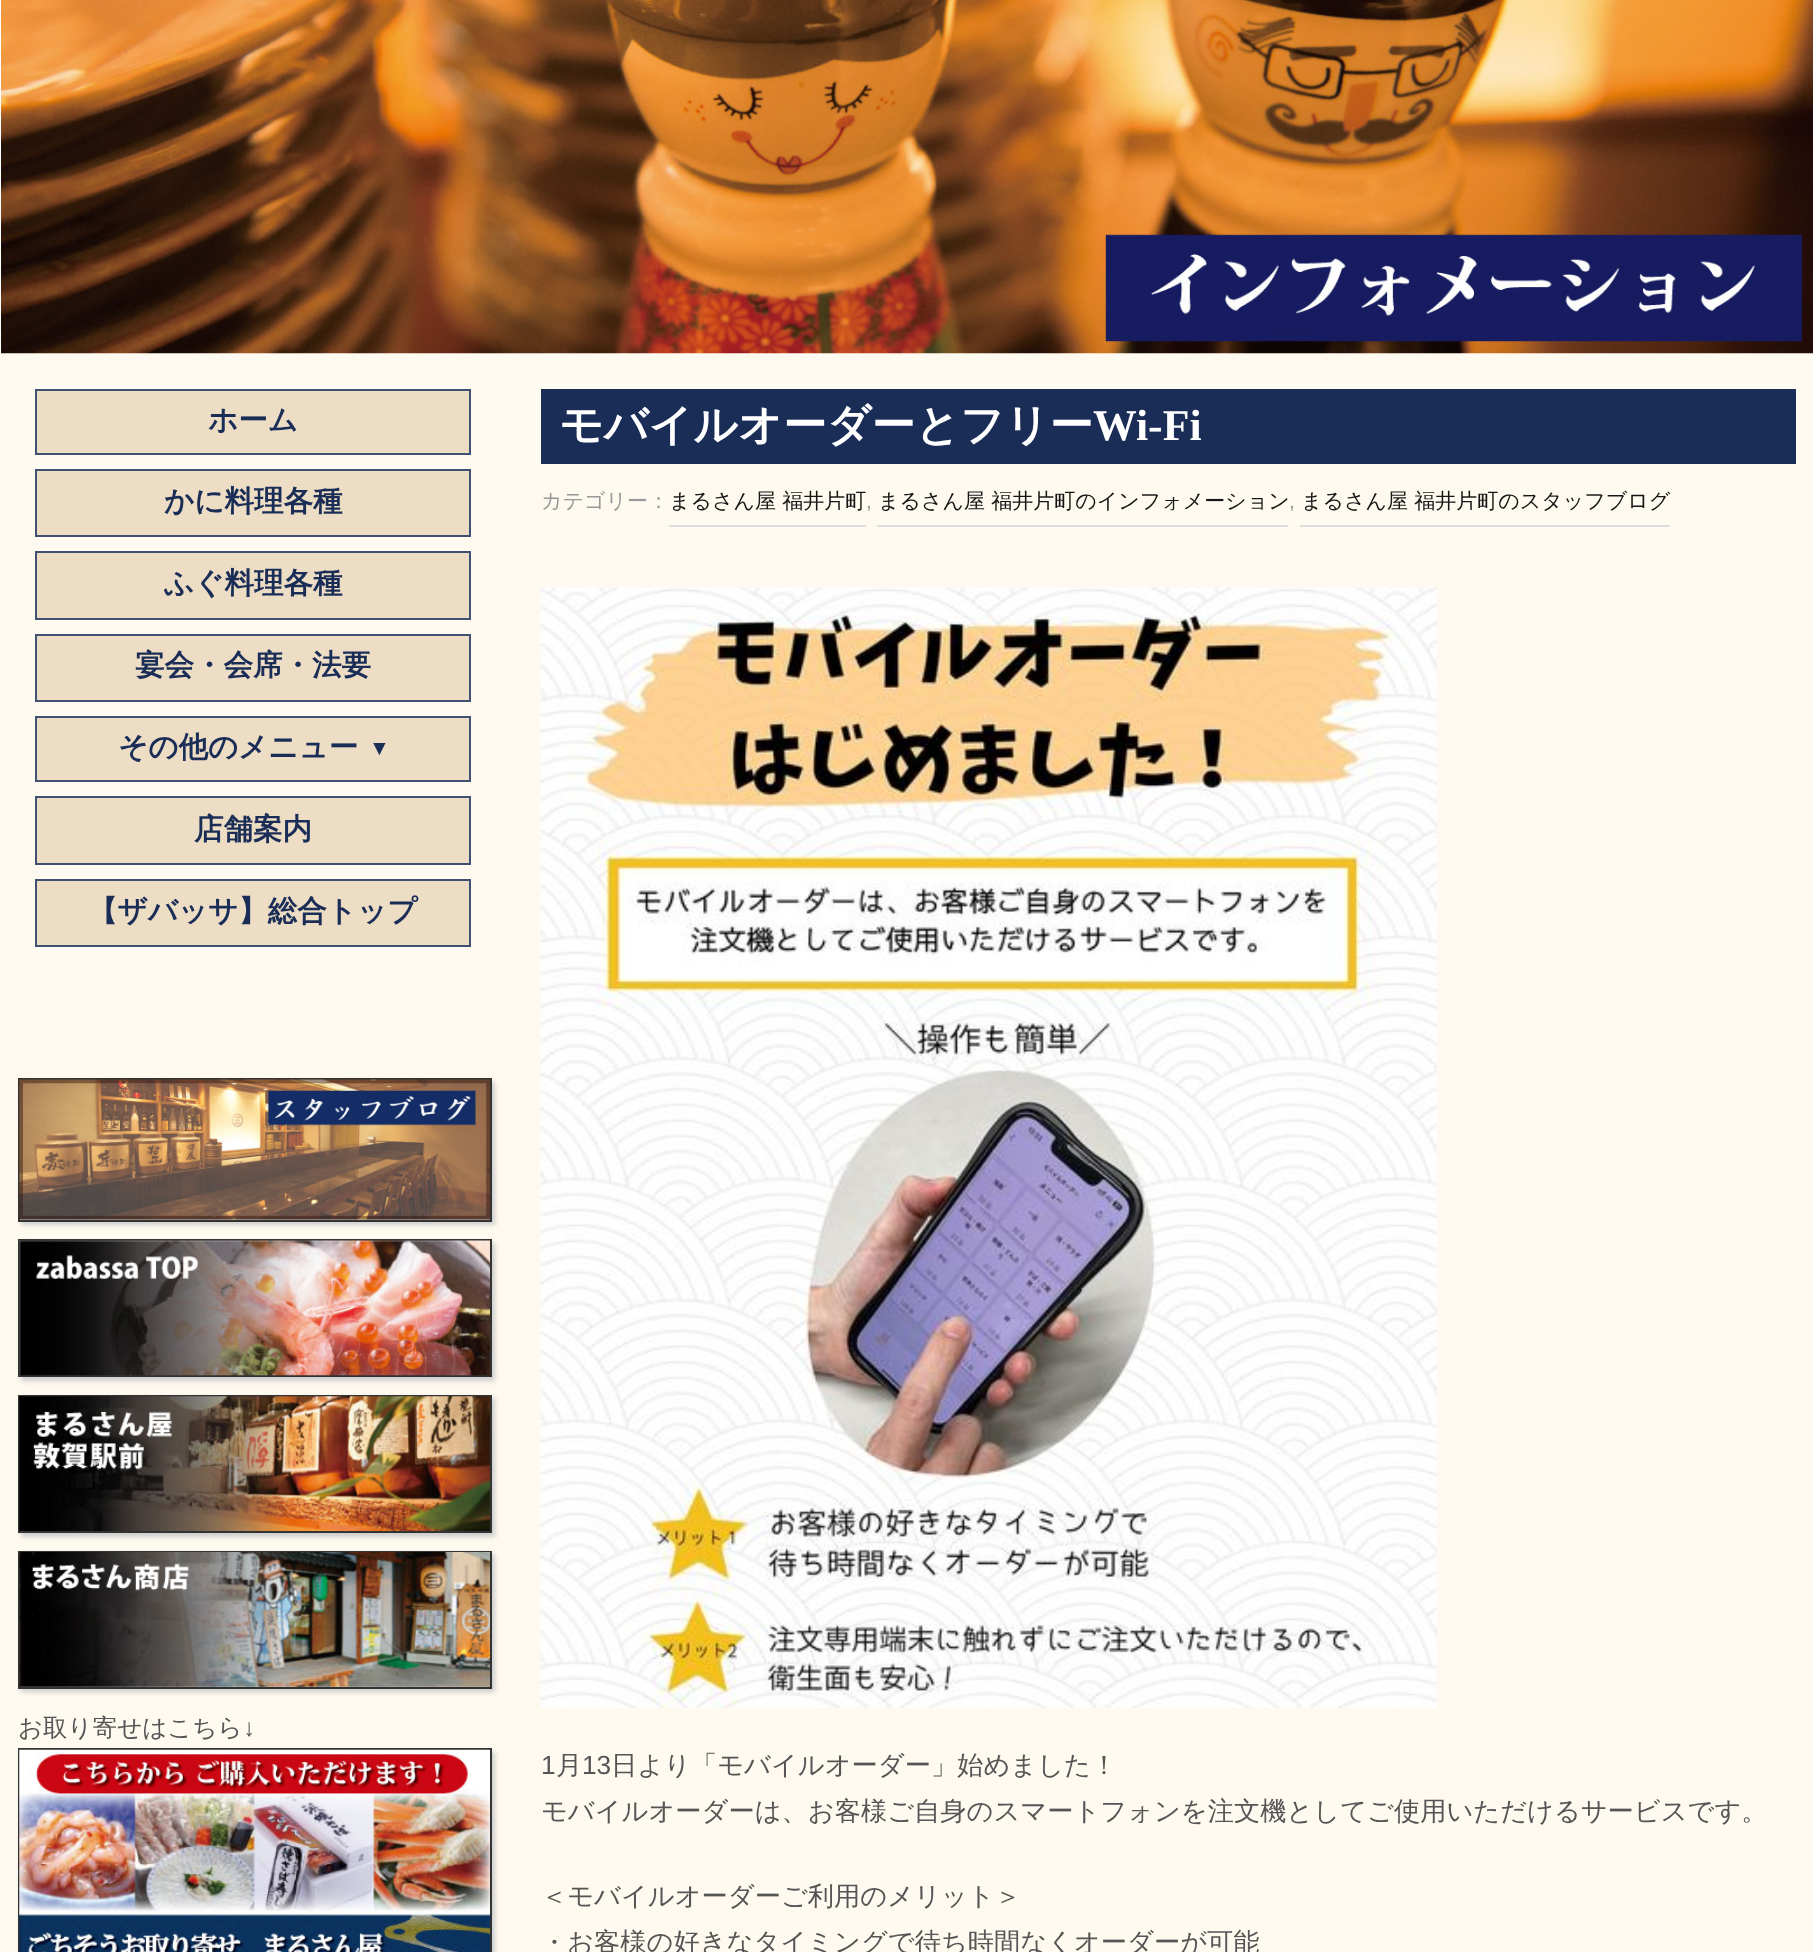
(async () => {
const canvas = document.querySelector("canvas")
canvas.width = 1813
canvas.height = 1952
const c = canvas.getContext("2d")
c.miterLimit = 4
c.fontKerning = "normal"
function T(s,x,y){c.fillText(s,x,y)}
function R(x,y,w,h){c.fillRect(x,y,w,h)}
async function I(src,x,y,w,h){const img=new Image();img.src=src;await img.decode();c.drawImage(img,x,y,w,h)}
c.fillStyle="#fffaf0"
R(0,0,1813,1952)
await I("1.png",0,0,1813,354)
c.fillStyle="#edddc5"
c.beginPath()
c.rect(36,390,434,64)
c.fill()
c.strokeStyle="#415174"
c.lineWidth=2
c.stroke()
c.font="bold 29.5px WenQuanYi Zen Hei"
c.fillStyle="#1a2d56"
T("ホーム",208,430)
c.fillStyle="#edddc5"
c.beginPath()
c.rect(36,470,434,66)
c.fill()
c.stroke()
c.fillStyle="#1a2d56"
T("かに料理各種",164,511)
c.fillStyle="#edddc5"
c.beginPath()
c.rect(36,552,434,67)
c.fill()
c.stroke()
c.fillStyle="#1a2d56"
T("ふぐ料理各種",164,593)
c.fillStyle="#edddc5"
c.beginPath()
c.rect(36,635,434,66)
c.fill()
c.stroke()
c.fillStyle="#1a2d56"
T("宴会・会席・法要",135,675)
c.fillStyle="#edddc5"
c.beginPath()
c.rect(36,717,434,64)
c.fill()
c.stroke()
c.fillStyle="#1a2d56"
T("その他のメニュー",118,757)
c.font="bold 21px Liberation Sans"
T("▼",369,755)
c.fillStyle="#edddc5"
c.beginPath()
c.rect(36,797,434,67)
c.fill()
c.stroke()
c.font="bold 29.5px WenQuanYi Zen Hei"
c.fillStyle="#1a2d56"
T("店舗案内",194,839)
c.fillStyle="#edddc5"
c.beginPath()
c.rect(36,880,434,66)
c.fill()
c.stroke()
c.fillStyle="#1a2d56"
T("【ザバッサ】総合トップ",88,921)
c.fillStyle="#ccc"
c.filter="blur(2.5px)"
c.beginPath()
c.rect(21,1082,474,143)
c.fill()
c.filter="none"
c.strokeStyle="#333"
c.strokeRect(19,1079,472,142)
await I("2.png",19,1079,471,141)
c.filter="blur(2.5px)"
c.beginPath()
c.rect(21,1243,474,138)
c.fill()
c.filter="none"
c.strokeRect(19,1240,472,136)
await I("3.png",19,1240,471,136)
c.filter="blur(2.5px)"
c.beginPath()
c.rect(21,1398,474,139)
c.fill()
c.filter="none"
c.strokeRect(19,1396,472,136)
await I("4.png",19,1396,471,135)
c.filter="blur(2.5px)"
c.beginPath()
c.rect(21,1554,474,138)
c.fill()
c.filter="none"
c.strokeRect(19,1552,472,136)
await I("5.png",19,1552,471,135)
c.font="500 24.5px WenQuanYi Zen Hei"
c.fillStyle="#555"
T("お取り寄せはこちら",18,1736)
c.font="24.5px Liberation Sans"
T("↓",243,1736)
c.fillStyle="#ccc"
c.filter="blur(2.5px)"
c.beginPath()
c.rect(21,1752,474,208)
c.fill()
c.filter="none"
c.strokeRect(19,1749,472,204)
await I("6.png",19,1749,471,203)
c.fillStyle="#1a2d56"
R(541,389,1255,75)
c.font="bold 43.75px WenQuanYi Zen Hei"
c.fillStyle="#fff"
T("モバイルオーダーとフリー",559,440)
c.font="bold 43.75px Liberation Serif"
T("Wi-Fi",1093,440)
c.font="500 21px WenQuanYi Zen Hei"
c.fillStyle="#999"
T("カテゴリー：",541,508)
c.fillStyle="#ddd"
R(669,525,197,2)
c.fillStyle="#151515"
T("まるさん屋 福井片町",669,508)
c.font="21px Liberation Sans"
c.fillStyle="#999"
T(",",866,508)
c.fillStyle="#ddd"
R(877,525,411,2)
c.font="500 21px WenQuanYi Zen Hei"
c.fillStyle="#151515"
T("まるさん屋 福井片町のインフォメーション",878,508)
c.font="21px Liberation Sans"
c.fillStyle="#999"
T(",",1289,508)
c.fillStyle="#ddd"
R(1300,525,370,2)
c.font="500 21px WenQuanYi Zen Hei"
c.fillStyle="#151515"
T("まるさん屋 福井片町のスタッフブログ",1301,508)
await I("7.png",540,587,897,1121)
c.font="26.25px Liberation Sans"
c.fillStyle="#555"
T("1",541,1774)
c.font="500 26.25px WenQuanYi Zen Hei"
T("月",556,1774)
c.font="26.25px Liberation Sans"
T("13",582,1774)
c.font="500 26.25px WenQuanYi Zen Hei"
T("日より「モバイルオーダー」始めました！",611,1774)
T("モバイルオーダーは、お客様ご自身のスマートフォンを注文機としてご使用いただけるサービスです。",541,1820)
T("＜モバイルオーダーご利用のメリット＞",541,1905)
T("・お客様の好きなタイミングで待ち時間なくオーダーが可能",541,1951)
})()
